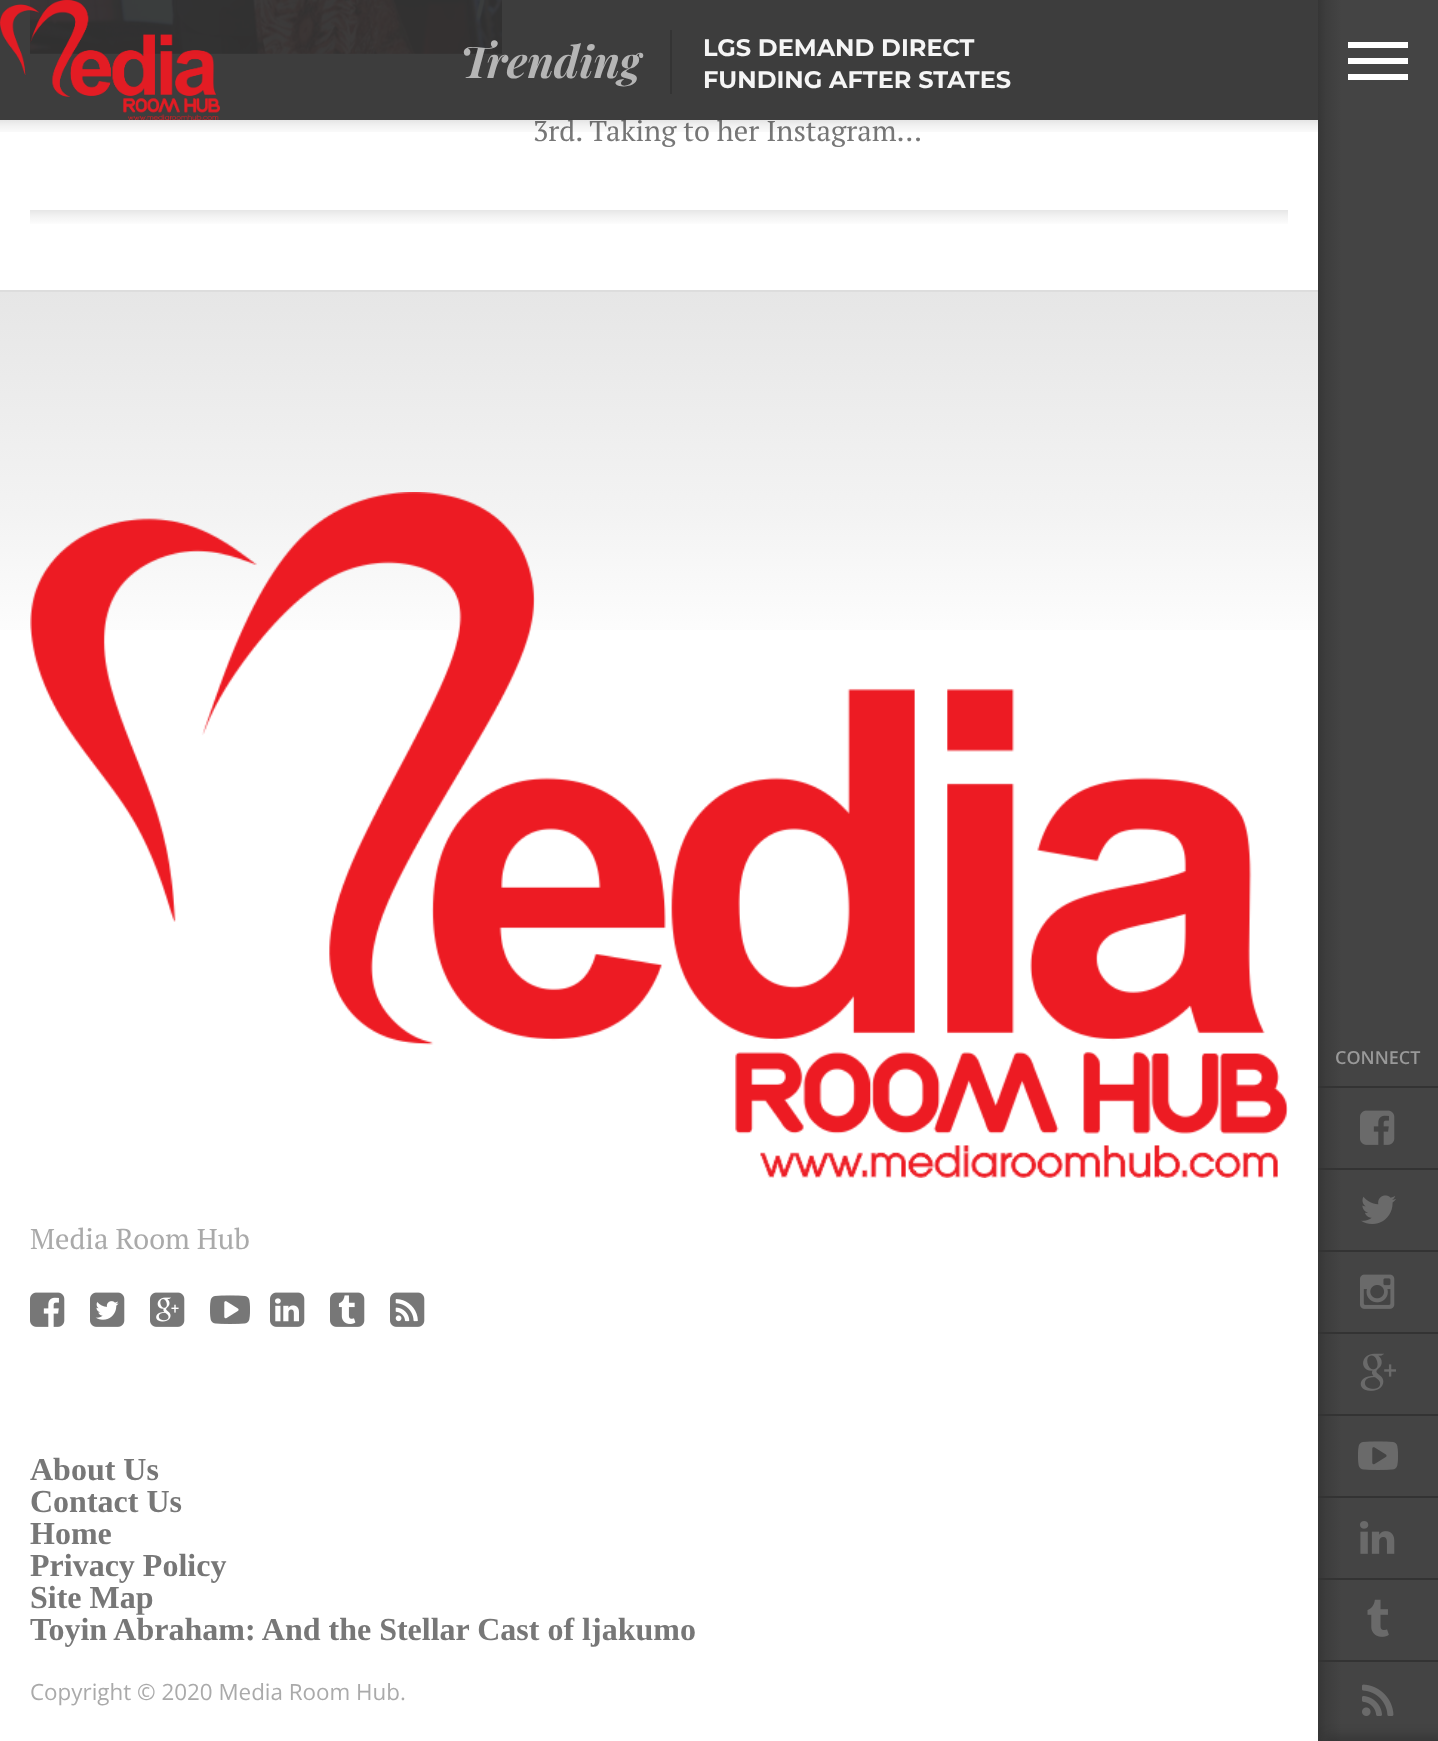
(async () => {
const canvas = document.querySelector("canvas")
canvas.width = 1438
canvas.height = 1741
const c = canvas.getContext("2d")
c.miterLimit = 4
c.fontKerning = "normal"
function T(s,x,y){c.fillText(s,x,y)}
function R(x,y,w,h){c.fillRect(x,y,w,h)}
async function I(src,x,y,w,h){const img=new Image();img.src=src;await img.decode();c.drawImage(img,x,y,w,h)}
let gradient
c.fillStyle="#fff"
R(0,0,1438,1741)
await I("2.png",30,0,472,54)
c.font="28.75px PT Serif"
c.fillStyle="#777"
T("3rd. Taking to her Instagram...",533,141)
c.fillStyle="#333333f2"
R(0,0,1318,120)
await I("1.png",0,0,220,120)
c.font="italic bold 44px Playfair Display"
c.fillStyle="#b5b5b5"
T("Trending",460,78)
c.fillStyle="#00000024"
R(670,30,2,64)
c.font="bold 24px Montserrat"
c.fillStyle="#f5f5f5"
T("LGS DEMAND DIRECT",703,56)
T("FUNDING AFTER STATES",703,88)
gradient = c.createLinearGradient(659,140,659,120)
gradient.addColorStop(.2,"#00000000")
gradient.addColorStop(.7,"#0000000d")
gradient.addColorStop(1,"#0000001a")
c.fillStyle = gradient
R(0,120,1318,12)
gradient = c.createLinearGradient(659,230,659,210)
gradient.addColorStop(.2,"#fff")
gradient.addColorStop(.7,"#f2f2f2")
gradient.addColorStop(1,"#e6e6e6")
c.fillStyle = gradient
R(30,210,1258,14)
gradient = c.createLinearGradient(659,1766,659,292)
gradient.addColorStop(.75,"#fff")
gradient.addColorStop(.85,"#f3f3f3")
gradient.addColorStop(1,"#e6e6e6")
c.fillStyle = gradient
R(0,292,1318,338)
c.fillStyle="#ddd"
R(0,290,1318,2)
await I("3.png",30,492,1258,686)
c.font="28.75px PT Serif"
c.fillStyle="#aaa"
T("Media Room Hub",30,1249)
await I("4.png",30,1292,35,35)
await I("5.png",90,1292,35,35)
await I("6.png",150,1292,35,35)
await I("7.png",210,1295,40,29)
await I("8.png",270,1292,35,35)
await I("9.png",330,1292,35,35)
await I("10.png",390,1292,35,35)
c.font="bold 32px Liberation Serif"
c.fillStyle="#777"
T("About Us",30,1480)
T("Contact Us",30,1512)
T("Home",30,1544)
T("Privacy Policy",30,1576)
T("Site Map",30,1608)
T("Toyin Abraham: And the Stellar Cast of ljakumo",30,1640)
c.font="22.4px Open Sans"
c.fillStyle="#aaa"
T("Copyright © 2020 Media Room Hub.",30,1700)
gradient = c.createLinearGradient(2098,871,1318,871)
gradient.addColorStop(.97,"#444")
gradient.addColorStop(.99,"#3d3d3d")
gradient.addColorStop(1,"#363636")
c.fillStyle = gradient
R(1318,0,120,1741)
c.fillStyle="#fff"
R(1348,42,60,6)
R(1348,58,60,6)
R(1348,74,60,6)
c.font="600 18px Open Sans"
c.fillStyle="#999"
T("CONNECT",1335,1064)
c.fillStyle="#333"
R(1318,1086,120,2)
await I("11.png",1360,1110,35,35)
R(1318,1168,120,2)
await I("12.png",1361,1195,35,29)
R(1318,1250,120,2)
await I("13.png",1360,1274,35,35)
R(1318,1332,120,2)
await I("14.png",1360,1353,36,38)
R(1318,1414,120,2)
await I("15.png",1358,1441,40,29)
R(1318,1496,120,2)
await I("16.png",1360,1521,35,33)
R(1318,1578,120,2)
await I("17.png",1367,1599,22,38)
R(1318,1660,120,2)
await I("18.png",1362,1684,32,32)
c.fillStyle="#00000033"
c.filter="blur(6px)"
c.beginPath()
c.rect(1326,1736,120,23)
c.fill()
c.filter="none"
})()
